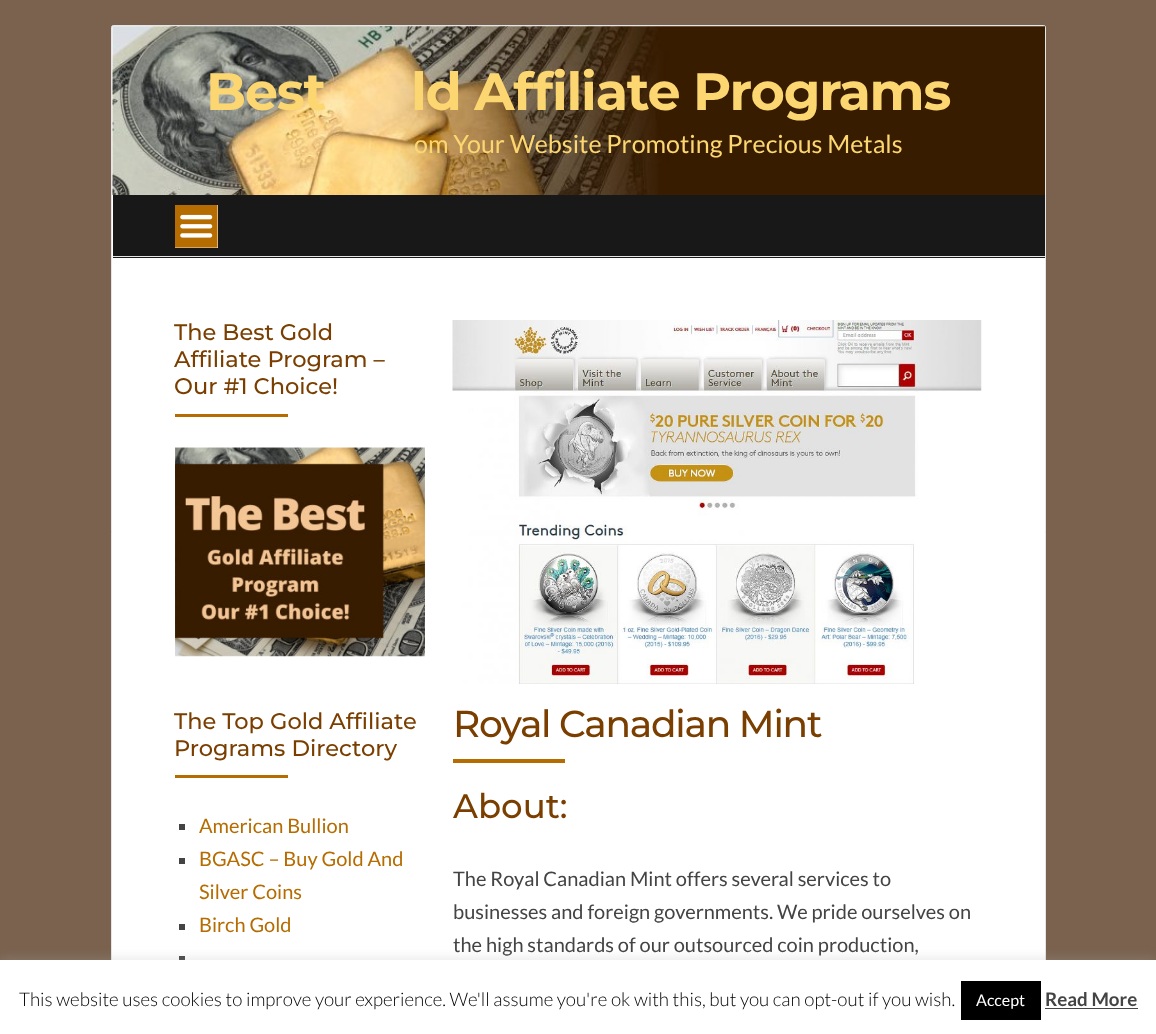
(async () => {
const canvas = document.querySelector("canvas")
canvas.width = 1156
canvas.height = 1034
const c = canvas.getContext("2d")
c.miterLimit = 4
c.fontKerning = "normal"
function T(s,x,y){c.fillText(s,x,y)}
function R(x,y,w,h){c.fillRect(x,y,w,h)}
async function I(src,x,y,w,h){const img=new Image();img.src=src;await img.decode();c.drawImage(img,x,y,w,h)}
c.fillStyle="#7a624f"
R(0,0,1156,1034)
c.fillStyle="#fff"
c.beginPath()
c.roundRect(111.5,25.5,934,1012,2)
c.fill()
c.strokeStyle="#e4e5e7"
c.stroke()
await I("1.png",112,26,933,169)
c.letterSpacing="-1.25px"
c.font="bold 52.5px Montserrat"
c.fillStyle="#fcd771"
T("Best",206,110)
T("ld Affiliate Programs",411,110)
c.letterSpacing="0px"
c.font="25px Lato"
T("om Your Website Promoting Precious Metals",414,153)
c.fillStyle="#181818"
R(113,195,932,63)
c.fillStyle="#e4e5e7"
R(113,256,932,1)
c.fillStyle="#fff"
R(175,205,43,43)
await I("2.png",175,205,43,43)
c.font="500 22.5px Montserrat"
c.fillStyle="#7a3f00"
T("The Best Gold",174,340)
T("Affiliate Program –",174,367)
T("Our #1 Choice!",174,394)
c.fillStyle="#b56c00"
R(175,414,113,3)
await I("3.png",175,447,250,210)
c.fillStyle="#7a3f00"
T("The Top Gold Affiliate",174,729)
T("Programs Directory",174,756)
c.fillStyle="#b56c00"
R(175,775,113,3)
c.fillStyle="#444"
R(179,824,6,6)
c.font="20px Lato"
c.fillStyle="#b56c00"
T("American Bullion",199,833)
c.fillStyle="#444"
R(179,858,6,6)
c.fillStyle="#b56c00"
T("BGASC – Buy Gold And",199,866)
T("Silver Coins",199,899)
c.fillStyle="#444"
R(179,924,6,6)
c.fillStyle="#b56c00"
T("Birch Gold",199,932)
c.fillStyle="#444"
R(179,956,6,7)
await I("4.png",452,320,530,364)
c.letterSpacing="-1.25px"
c.font="500 37.5px Montserrat"
c.fillStyle="#7a3f00"
T("Royal Canadian Mint",453,737)
c.fillStyle="#b56c00"
R(453,759,112,4)
c.letterSpacing="0px"
c.font="500 34px Montserrat"
c.fillStyle="#7a3f00"
T("About:",453,818)
c.font="20px Lato"
c.fillStyle="#444"
T("The Royal Canadian Mint offers several services to",453,886)
T("businesses and foreign governments. We pride ourselves on",453,919)
T("the high standards of our outsourced coin production,",453,952)
c.fillStyle="#acabab4d"
c.filter="blur(6px)"
c.beginPath()
c.rect(0,959,1156,75)
c.fill()
c.filter="none"
c.fillStyle="#fff"
R(0,960,1156,74)
c.font="300 18.75px Lato"
c.fillStyle="#000"
T("This website uses cookies to improve your experience. We'll assume you're ok with this, but you can opt-out if you wish.",19,1006)
R(961,981,80,39)
c.font="16px Lato"
c.fillStyle="#fff"
T("Accept",976,1006)
c.font="bold 18.75px Lato"
c.fillStyle="#444"
T("Read More",1045,1006)
R(1045,1008,93,1)
})()
